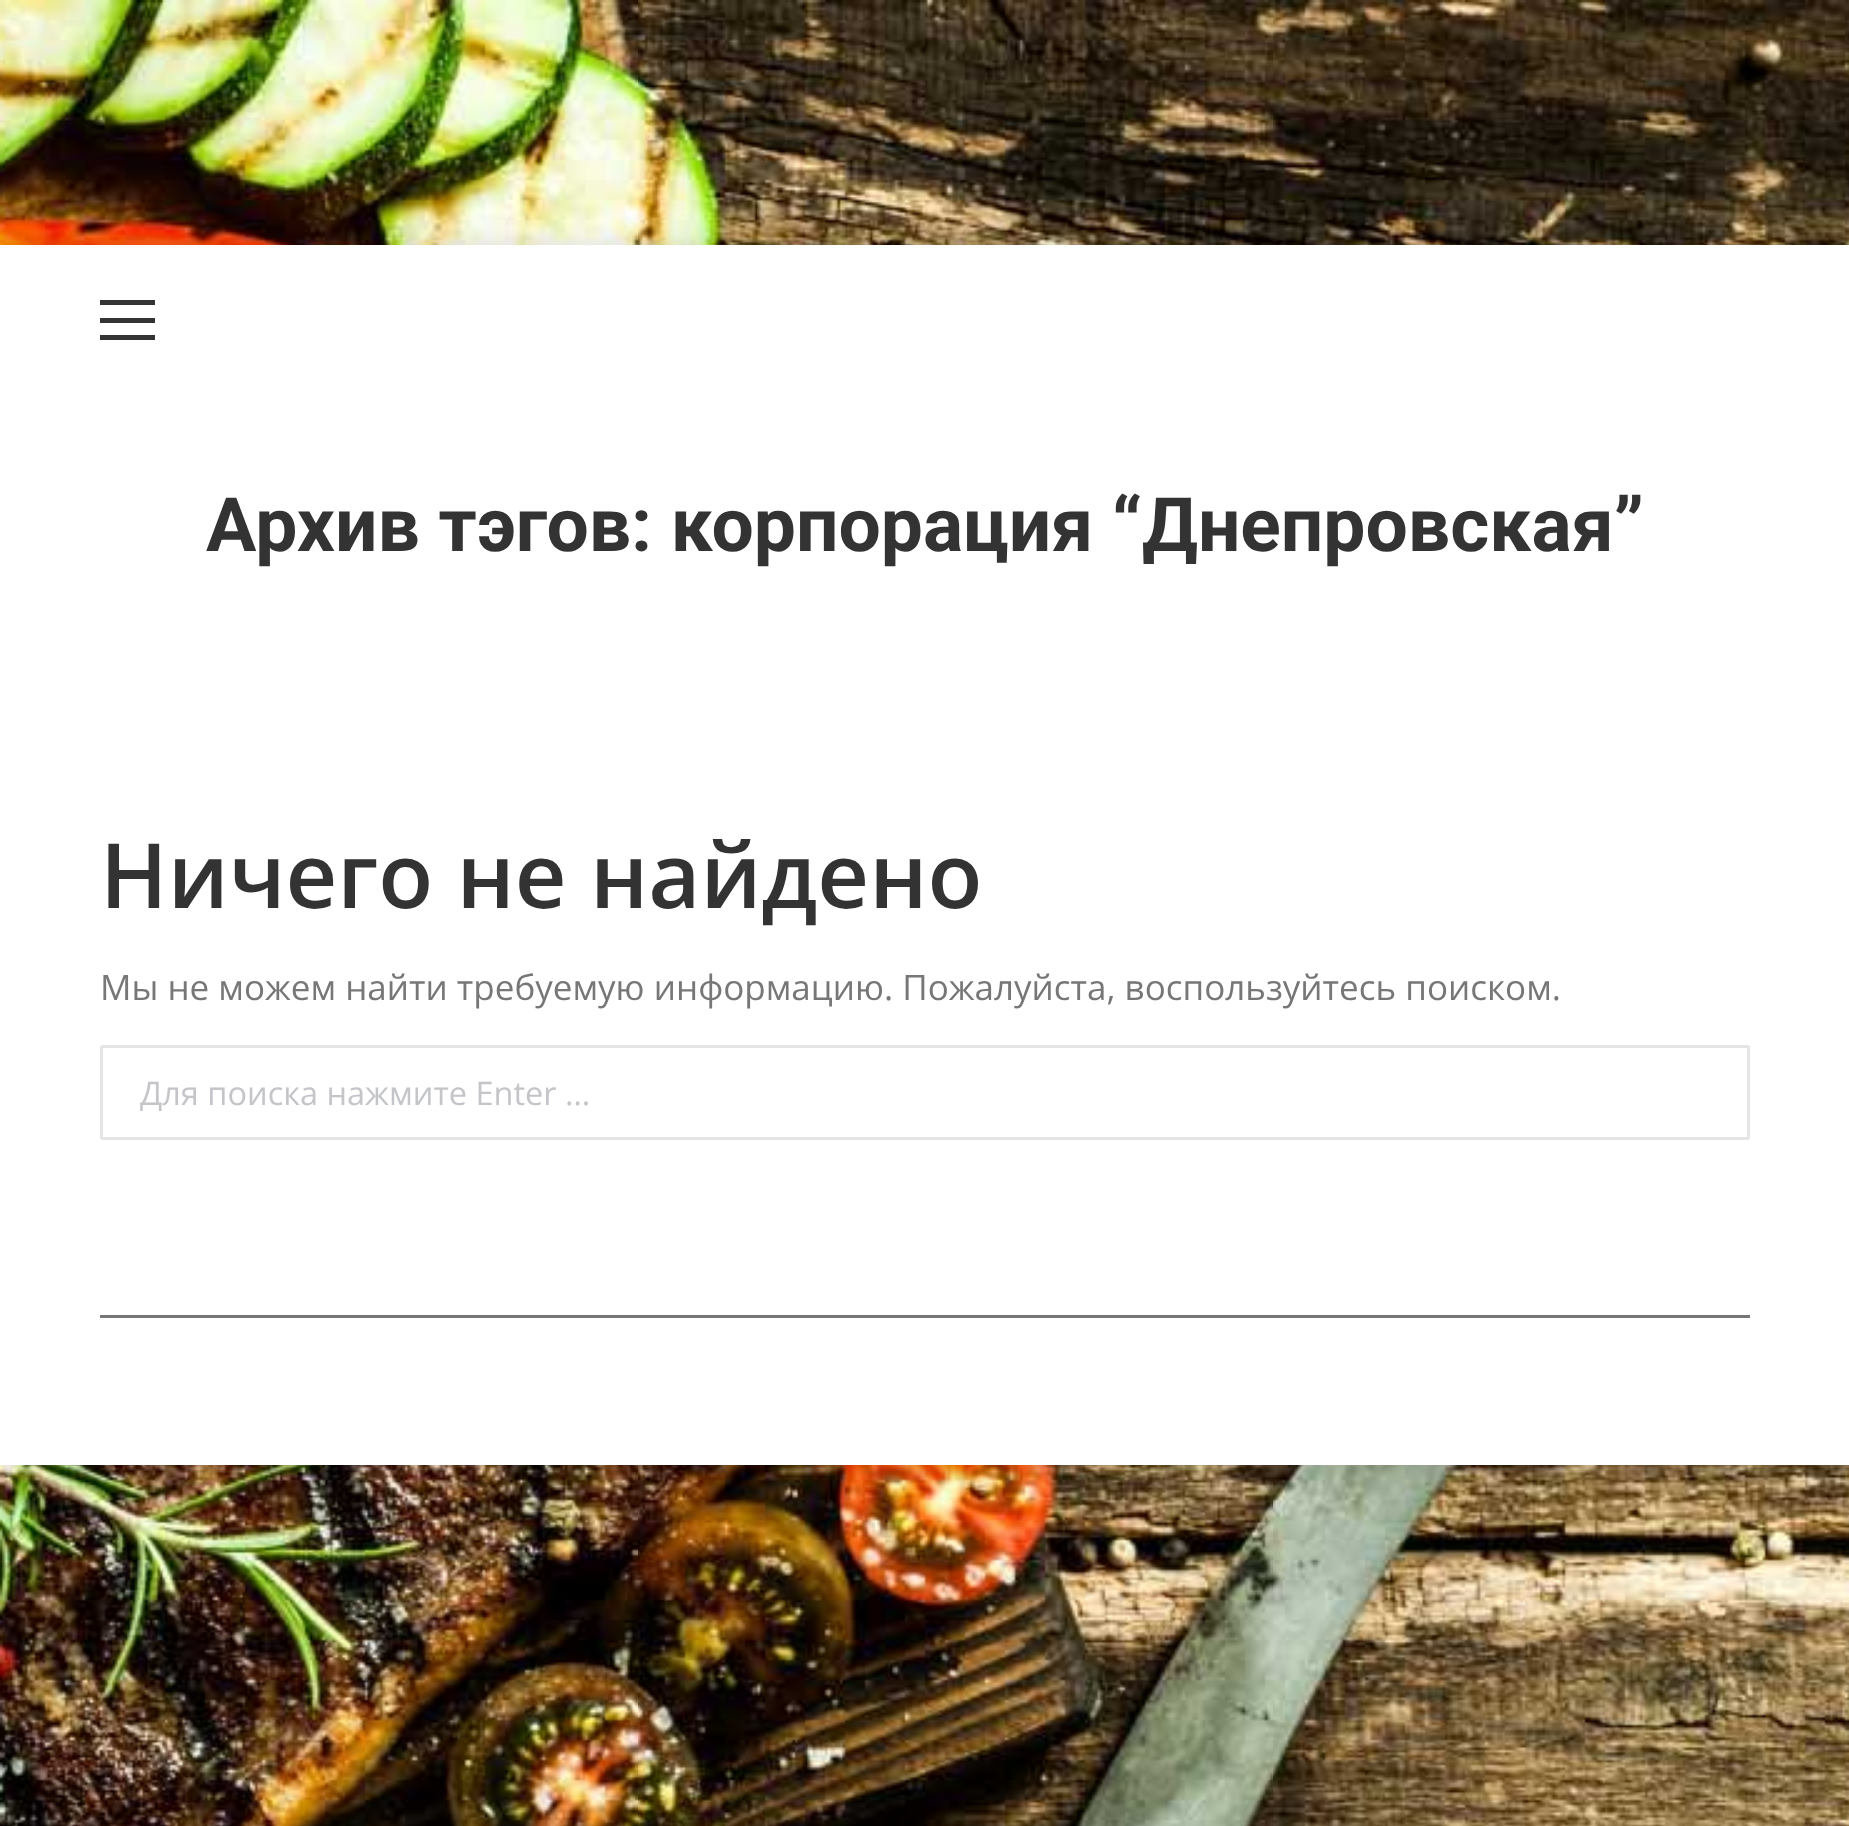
(async () => {
const canvas = document.querySelector("canvas")
canvas.width = 1849
canvas.height = 1826
const c = canvas.getContext("2d")
c.miterLimit = 4
c.fontKerning = "normal"
function T(s,x,y){c.fillText(s,x,y)}
function R(x,y,w,h){c.fillRect(x,y,w,h)}
async function I(src,x,y,w,h){const img=new Image();img.src=src;await img.decode();c.drawImage(img,x,y,w,h)}
c.fillStyle="#fff"
R(0,0,1849,1826)
await I("1.png",0,0,1849,1826)
c.fillStyle="#00000026"
c.filter="blur(15px)"
c.beginPath()
c.rect(0,245,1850,1220)
c.fill()
c.filter="none"
c.fillStyle="#fff"
R(0,245,1849,1220)
c.fillStyle="#333"
R(100,318,55,5)
R(100,300,55,5)
R(100,335,55,5)
c.font="bold 75px Roboto"
T("Архив тэгов: корпорация “Днепровская”",206,551)
c.font="600 90px Open Sans"
T("Ничего не найдено",100,908)
c.font="35px Open Sans"
c.fillStyle="#777"
T("Мы не можем найти требуемую информацию. Пожалуйста, воспользуйтесь поиском.",100,1000)
c.beginPath()
c.roundRect(101.5,1046.5,1647,92,1)
c.strokeStyle="#e5e5e5"
c.lineWidth=3
c.stroke()
c.font="32.5px Open Sans"
c.fillStyle="#c4c5c9"
T("Для поиска нажмите Enter …",140,1105)
c.fillStyle="#777"
R(100,1315,1650,3)
})()
